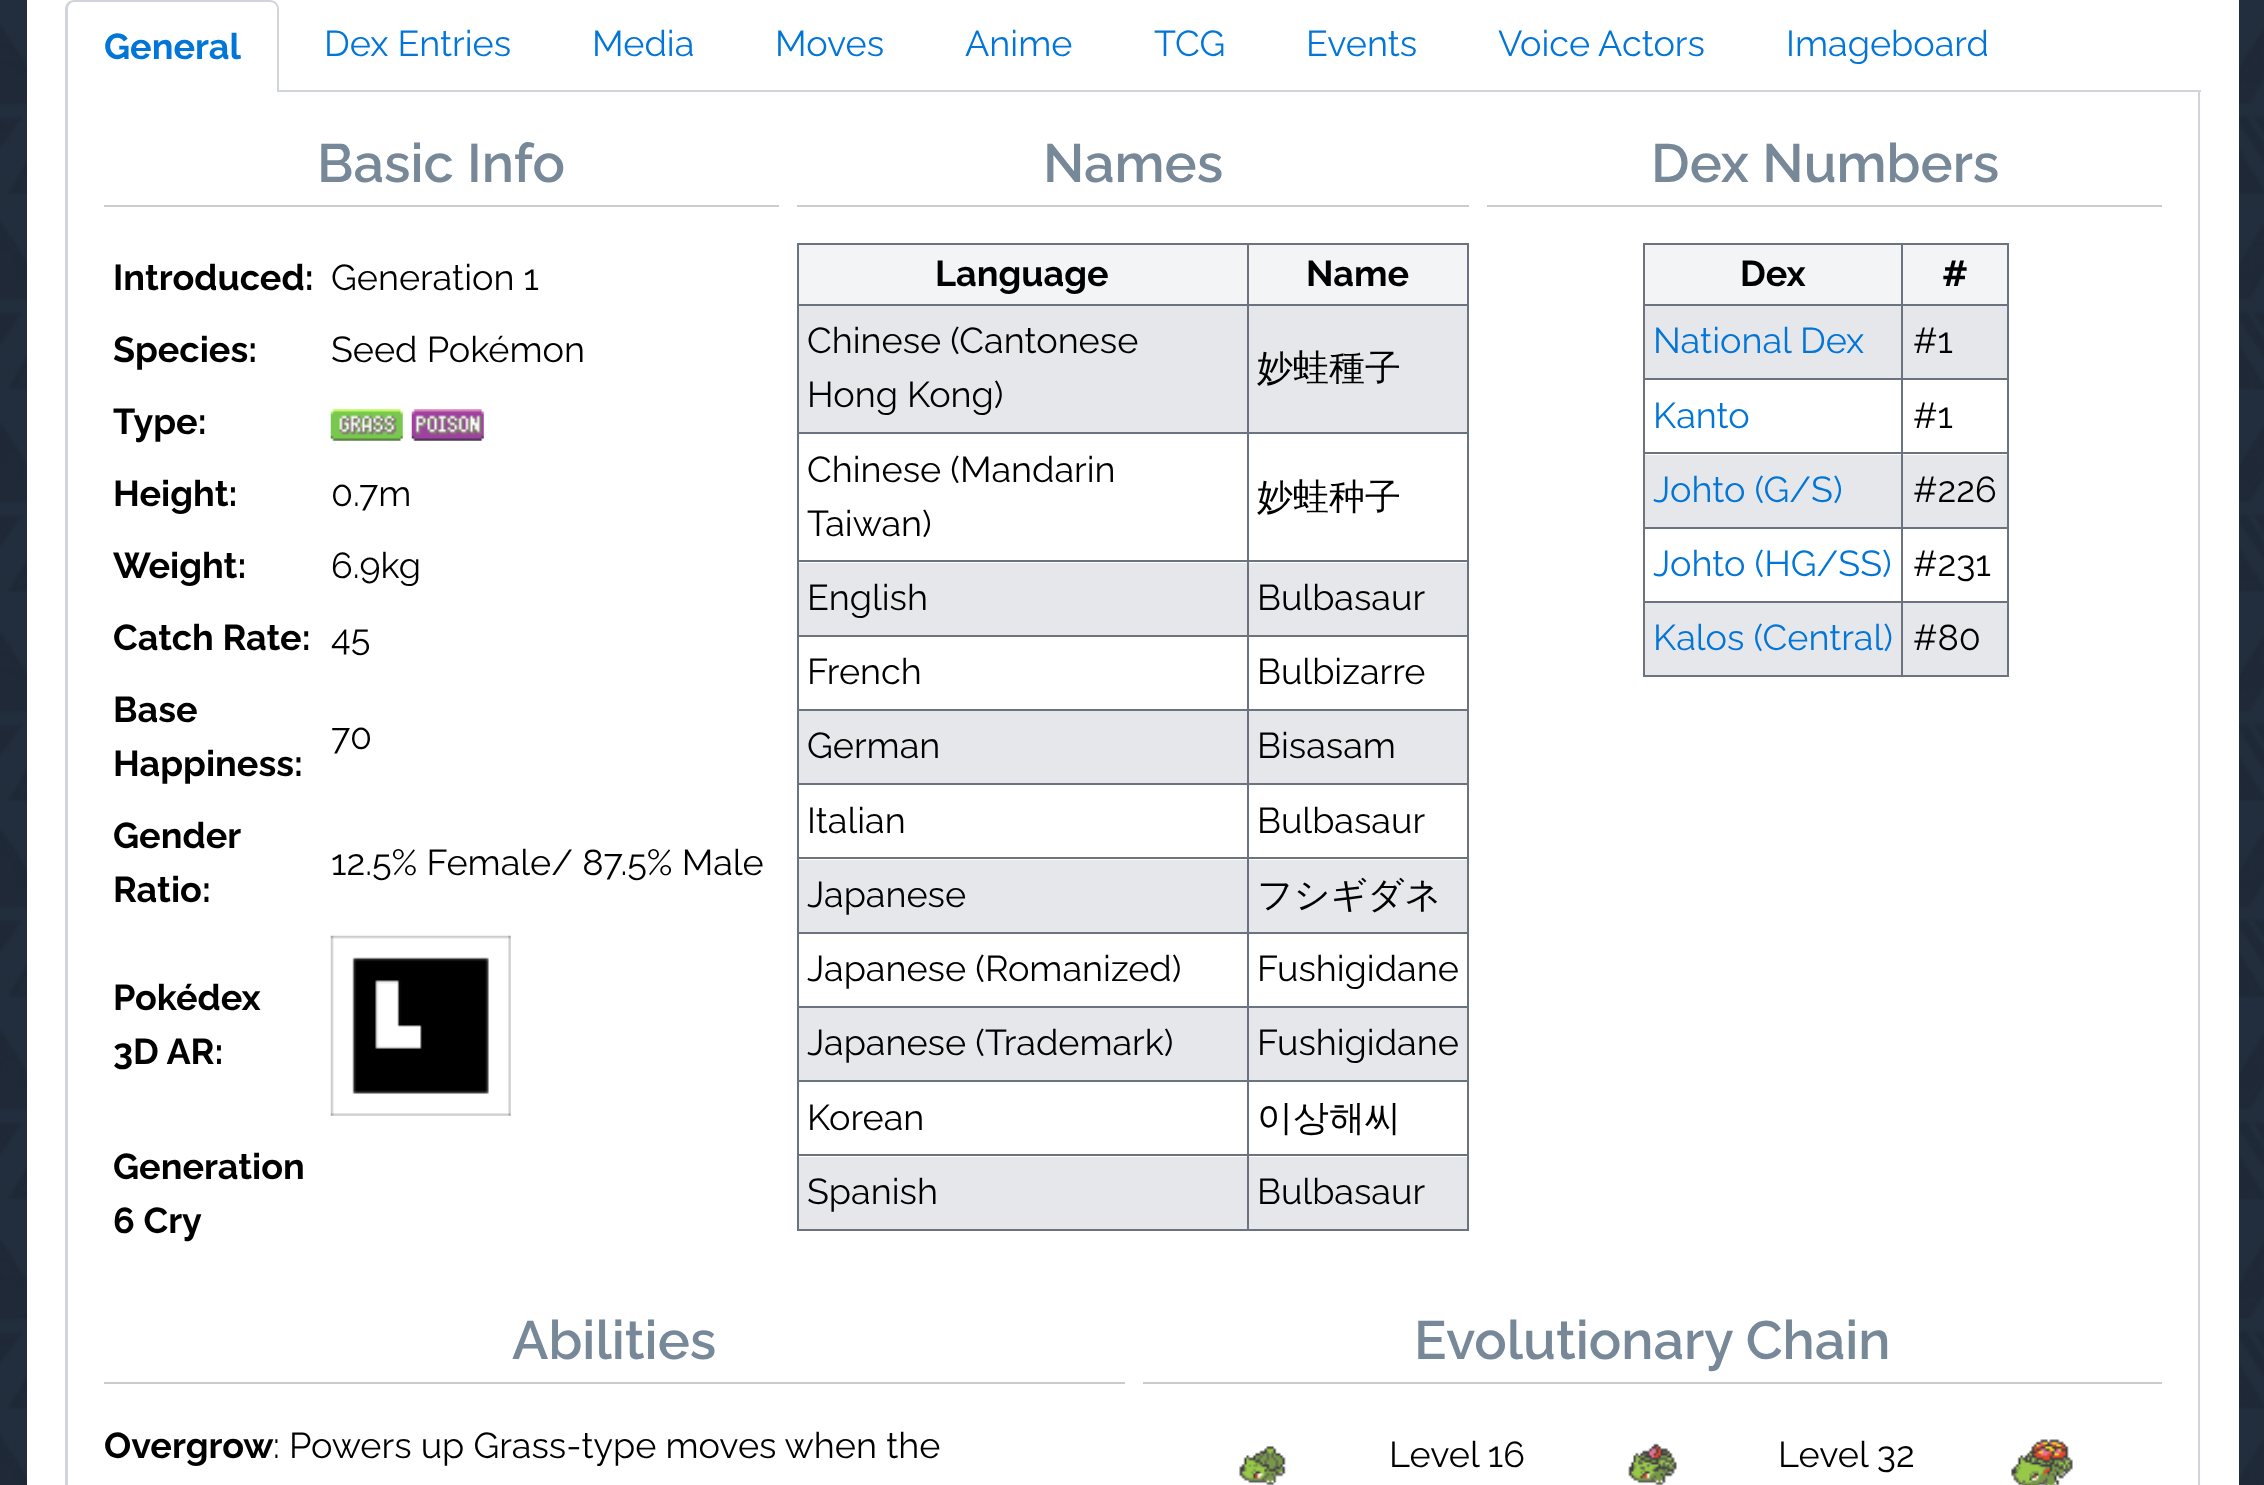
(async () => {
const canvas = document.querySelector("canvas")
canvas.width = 2264
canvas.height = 1485
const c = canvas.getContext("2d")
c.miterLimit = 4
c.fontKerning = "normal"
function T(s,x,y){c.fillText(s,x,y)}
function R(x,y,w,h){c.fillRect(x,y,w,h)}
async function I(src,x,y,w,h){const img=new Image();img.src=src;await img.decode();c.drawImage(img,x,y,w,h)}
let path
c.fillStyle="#fff"
R(0,0,2264,1485)
await I("1.png",0,0,2264,1485)
R(27,0,2212,1485)
c.fillStyle="#d1d5db"
path = new Path2D("M65-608h2135v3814c0 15-12 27-26 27h-2082c-15 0-27-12-27-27zm3 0h2130v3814c0 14-11 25-24 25h-2082c-13 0-24-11-24-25z")
c.fill(path,"evenodd")
c.fillStyle="#fff"
R(65,0,2135,90)
c.fillStyle="#d1d5db"
R(279,90,1922,2)
path = new Path2D("M74 0h196c5 0 9 4 9 9v83h-214v-83c0-5 4-9 9-9zm0 2h196c4 0 7 3 7 7v83h-209v-83c0-4 3-7 6-7z")
c.fill(path,"evenodd")
c.font="bold 36px Raleway"
c.fillStyle="#0275d8"
T("General",104,59)
c.font="36px Raleway"
T("Dex Entries",324,56)
T("Media",592,56)
T("Moves",775,56)
T("Anime",965,56)
T("TCG",1154,56)
T("Events",1306,56)
T("Voice Actors",1498,56)
T("Imageboard",1786,56)
c.fillStyle="#ccc"
R(104,205,675,2)
c.font="600 54px Raleway"
c.fillStyle="#789"
T("Basic Info",317,182)
c.font="bold 36px Raleway"
c.fillStyle="#000"
T("Introduced:",113,290)
c.font="36px Raleway"
T("Generation 1",331,290)
c.font="bold 36px Raleway"
T("Species:",113,362)
c.font="36px Raleway"
T("Seed Pokémon",331,362)
c.font="bold 36px Raleway"
T("Type:",113,434)
await I("2.png",330,409,73,32)
await I("3.png",411,409,73,32)
T("Height:",113,506)
c.font="36px Raleway"
T("0.7m",331,506)
c.font="bold 36px Raleway"
T("Weight:",113,578)
c.font="36px Raleway"
T("6.9kg",331,578)
c.font="bold 36px Raleway"
T("Catch Rate:",113,650)
c.font="36px Raleway"
T("45",331,650)
c.font="bold 36px Raleway"
T("Base",113,722)
T("Happiness:",113,776)
c.font="36px Raleway"
T("70",331,749)
c.font="bold 36px Raleway"
T("Gender",113,848)
T("Ratio:",113,902)
c.font="36px Raleway"
T("12.5% Female/ 87.5% Male",331,875)
c.font="bold 36px Raleway"
T("Pokédex",113,1010)
T("3D AR:",113,1064)
await I("4.png",330,935,181,181)
T("Generation",113,1179)
T("6 Cry",113,1233)
c.fillStyle="#ccc"
R(797,205,672,2)
c.font="600 54px Raleway"
c.fillStyle="#789"
T("Names",1043,182)
c.fillStyle="#6b7280"
R(797,243,672,2)
R(797,304,672,2)
R(797,432,672,2)
R(797,560,672,2)
R(797,635,672,2)
R(797,709,672,2)
R(797,783,672,2)
R(797,857,672,2)
R(797,932,672,2)
R(797,1006,672,2)
R(797,1080,672,2)
R(797,1154,672,2)
R(1467,1154,2,77)
R(1467,1080,2,77)
R(1467,1006,2,76)
R(1467,932,2,76)
R(1467,857,2,77)
R(1467,783,2,77)
R(1467,709,2,76)
R(1467,635,2,76)
R(1467,560,2,77)
R(1467,432,2,131)
R(1467,304,2,130)
R(1467,243,2,63)
R(797,1229,672,2)
R(797,1154,2,77)
R(797,1080,2,77)
R(797,1006,2,76)
R(797,932,2,76)
R(797,857,2,77)
R(797,783,2,77)
R(797,709,2,76)
R(797,635,2,76)
R(797,560,2,77)
R(797,432,2,131)
R(797,304,2,130)
R(797,243,2,63)
c.fillStyle="#f3f4f6"
R(799,245,448,59)
c.font="bold 36px Raleway"
c.fillStyle="#000"
T("Language",935,286)
c.fillStyle="#f3f4f6"
R(1249,245,218,59)
c.fillStyle="#000"
T("Name",1306,286)
c.fillStyle="#e5e7eb"
R(799,306,668,126)
c.font="36px Raleway"
c.fillStyle="#000"
T("Chinese (Cantonese",807,353)
T("Hong Kong)",807,407)
c.font="500 36px WenQuanYi Zen Hei"
T("妙蛙種子",1257,380)
c.font="36px Raleway"
T("Chinese (Mandarin",807,482)
T("Taiwan)",807,536)
c.font="500 36px WenQuanYi Zen Hei"
T("妙蛙种子",1257,509)
c.fillStyle="#e5e7eb"
R(799,563,668,72)
c.font="36px Raleway"
c.fillStyle="#000"
T("English",807,610)
T("Bulbasaur",1257,610)
T("French",807,684)
T("Bulbizarre",1257,684)
c.fillStyle="#e5e7eb"
R(799,711,668,72)
c.fillStyle="#000"
T("German",807,758)
T("Bisasam",1257,758)
T("Italian",807,833)
T("Bulbasaur",1257,833)
c.fillStyle="#e5e7eb"
R(799,860,668,72)
c.fillStyle="#000"
T("Japanese",807,907)
c.font="500 36px WenQuanYi Zen Hei"
T("フシギダネ",1257,907)
c.font="36px Raleway"
T("Japanese (Romanized)",807,981)
T("Fushigidane",1257,981)
c.fillStyle="#e5e7eb"
R(799,1008,668,72)
c.fillStyle="#000"
T("Japanese (Trademark)",807,1055)
T("Fushigidane",1257,1055)
T("Korean",807,1130)
c.font="500 36px WenQuanYi Zen Hei"
T("이상해씨",1257,1130)
c.fillStyle="#e5e7eb"
R(799,1157,668,72)
c.font="36px Raleway"
c.fillStyle="#000"
T("Spanish",807,1204)
c.fillStyle="#6b7280"
R(1247,243,2,988)
c.fillStyle="#000"
T("Bulbasaur",1257,1204)
c.fillStyle="#ccc"
R(1487,205,675,2)
c.font="600 54px Raleway"
c.fillStyle="#789"
T("Dex Numbers",1651,182)
c.fillStyle="#6b7280"
R(1643,243,366,2)
R(1643,304,366,2)
R(1643,378,366,2)
R(1643,452,366,2)
R(1643,527,366,2)
R(1643,601,366,2)
R(2007,601,2,76)
R(2007,527,2,76)
R(2007,452,2,77)
R(2007,378,2,77)
R(2007,304,2,76)
R(2007,243,2,63)
R(1643,675,366,2)
R(1643,601,2,76)
R(1643,527,2,76)
R(1643,452,2,77)
R(1643,378,2,77)
R(1643,304,2,76)
R(1643,243,2,63)
c.fillStyle="#f3f4f6"
R(1645,245,362,59)
c.font="bold 36px Raleway"
c.fillStyle="#000"
T("Dex",1740,286)
T("#",1942,286)
c.fillStyle="#e5e7eb"
R(1645,306,362,72)
c.font="36px Raleway"
c.fillStyle="#0275d8"
T("National Dex",1653,353)
c.fillStyle="#000"
T("#1",1913,353)
c.fillStyle="#0275d8"
T("Kanto",1653,428)
c.fillStyle="#000"
T("#1",1913,428)
c.fillStyle="#e5e7eb"
R(1645,455,362,72)
c.fillStyle="#0275d8"
T("Johto (G/S)",1653,502)
c.fillStyle="#000"
T("#226",1913,502)
c.fillStyle="#0275d8"
T("Johto (HG/SS)",1653,576)
c.fillStyle="#000"
T("#231",1913,576)
c.fillStyle="#e5e7eb"
R(1645,603,362,72)
c.fillStyle="#0275d8"
T("Kalos (Central)",1653,650)
c.fillStyle="#6b7280"
R(1901,243,2,434)
c.fillStyle="#000"
T("#80",1913,650)
c.fillStyle="#ccc"
R(104,1382,1021,2)
c.font="600 54px Raleway"
c.fillStyle="#789"
T("Abilities",512,1359)
c.font="bold 36px Raleway"
c.fillStyle="#000"
T("Overgrow",104,1458)
c.font="36px Raleway"
T(": Powers up Grass-type moves when the",273,1458)
c.fillStyle="#ccc"
R(1143,1382,1019,2)
c.font="600 54px Raleway"
c.fillStyle="#789"
T("Evolutionary Chain",1414,1359)
await I("5.png",1239,1446,47,39)
c.font="36px Raleway"
c.fillStyle="#000"
T("Level 16",1389,1467)
await I("6.png",1628,1443,49,42)
T("Level 32",1778,1467)
await I("7.png",2011,1439,62,46)
})()
